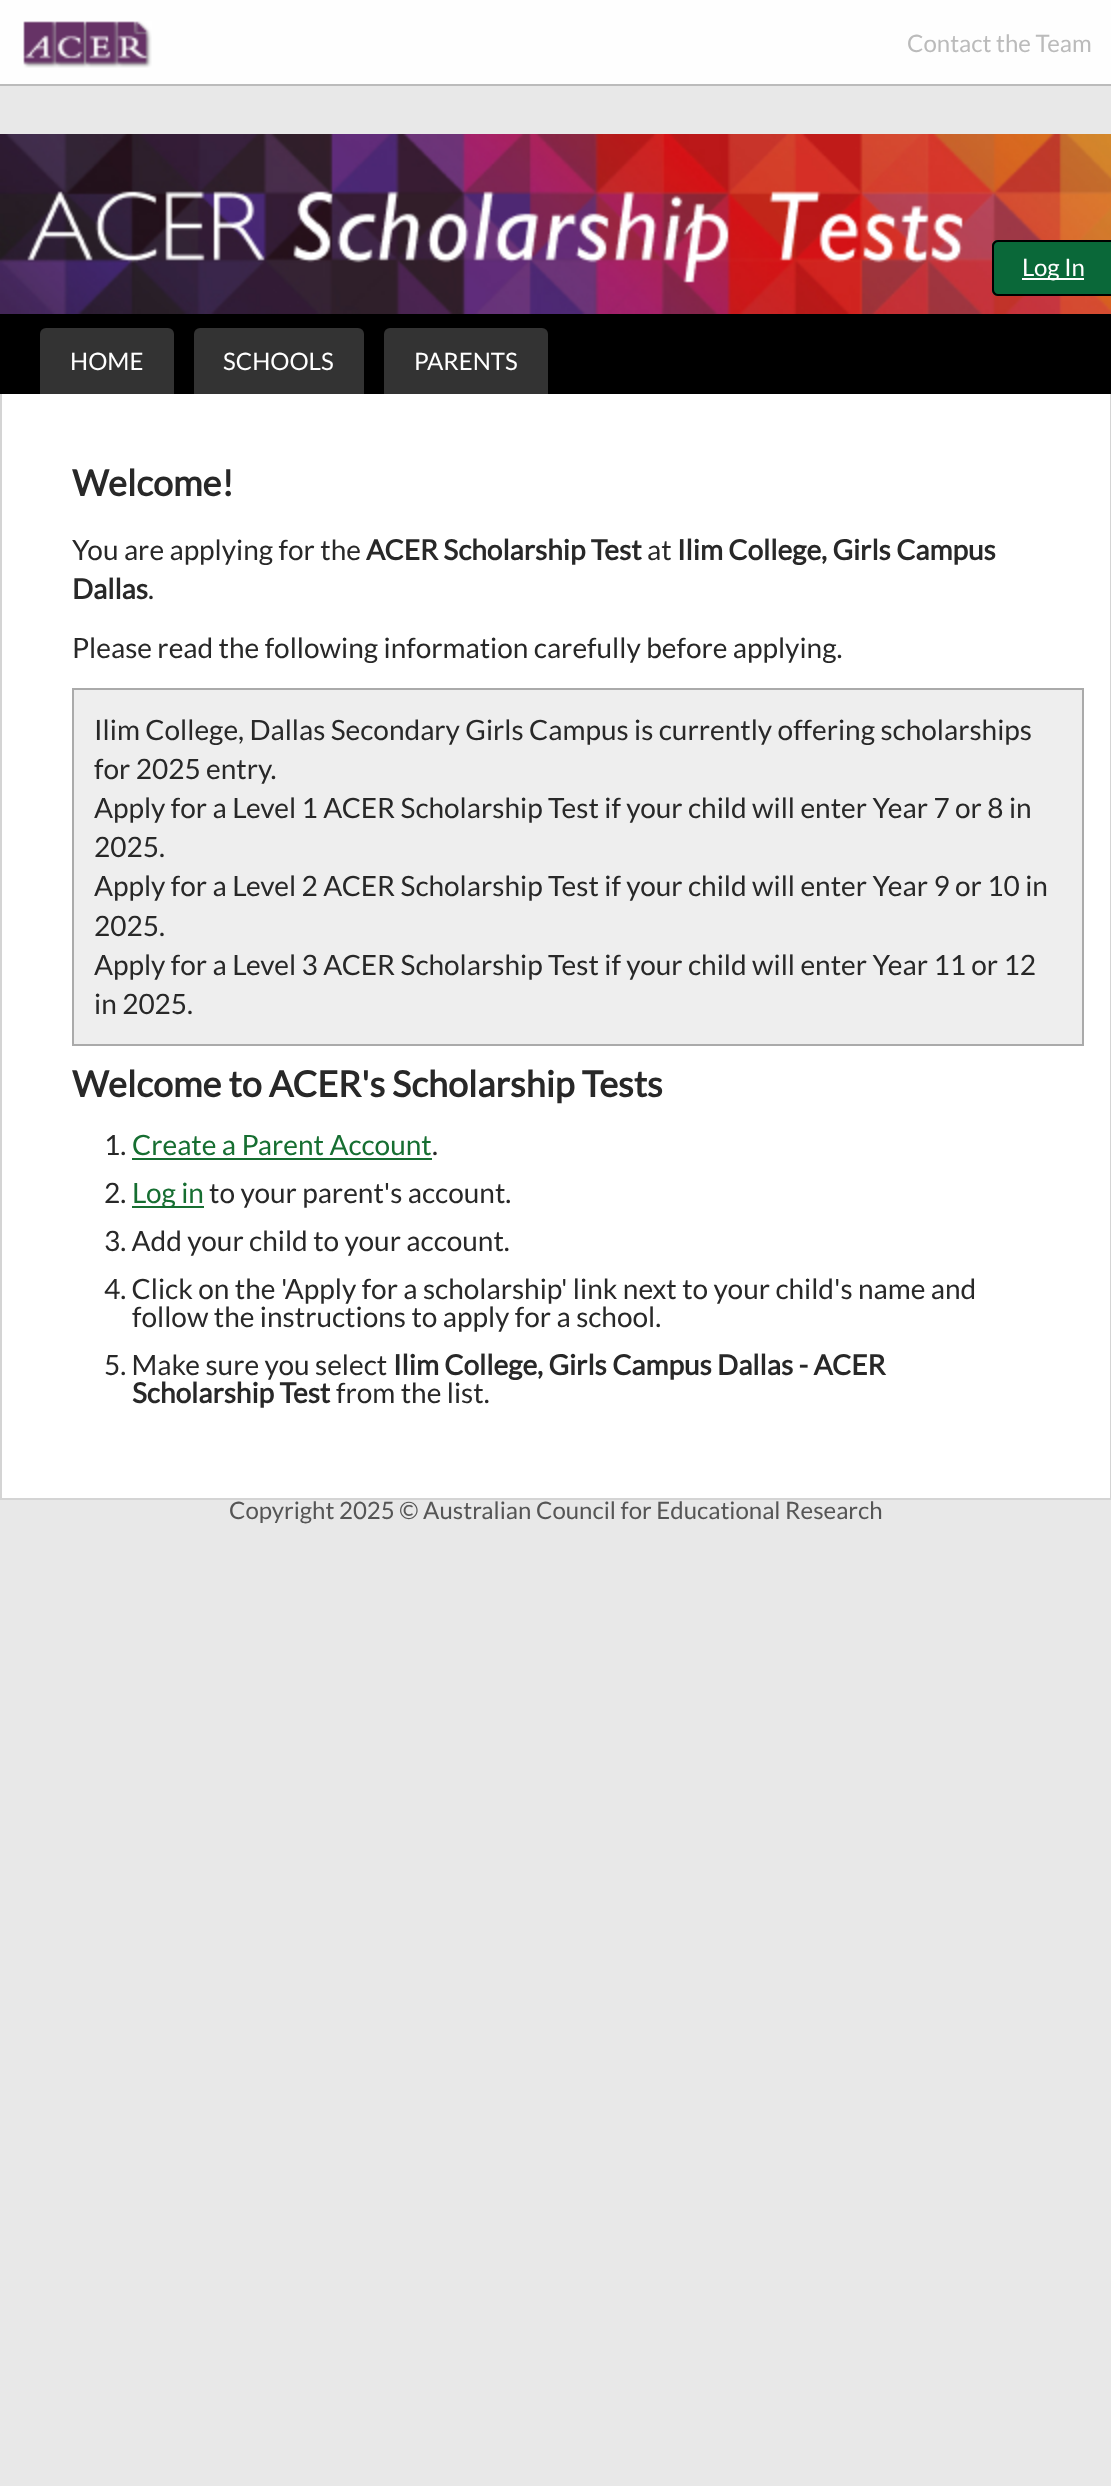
(async () => {
const canvas = document.querySelector("canvas")
canvas.width = 1111
canvas.height = 2486
const c = canvas.getContext("2d")
c.miterLimit = 4
c.fontKerning = "normal"
function T(s,x,y){c.fillText(s,x,y)}
function R(x,y,w,h){c.fillRect(x,y,w,h)}
async function I(src,x,y,w,h){const img=new Image();img.src=src;await img.decode();c.drawImage(img,x,y,w,h)}
let path
c.fillStyle="#e8e8e8"
R(0,0,1111,2486)
c.fillStyle="#fefefe"
R(0,0,1111,84)
c.fillStyle="#bbb"
R(0,84,1111,2)
await I("1.png",23,21,129,47)
c.font="24px Lato"
T("Contact the Team",907,52)
c.fillStyle="#fff"
R(2,394,1108,1104)
await I("2.png",0,134,1111,180)
c.fillStyle="#0a6839"
path = new Path2D("M998 240h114v56h-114c-3.5 0-6-2.5-6-6v-44c0-3.5 2.5-6 6-6z")
c.fill(path)
c.fillStyle="#000"
path = new Path2D("M998 240h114v56h-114c-3 0-6-3-6-6v-44c0-3 3-6 6-6zm0 2h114v52h-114c-2 0-4-2-4-4v-44c0-2 2-4 4-4z")
c.fill(path,"evenodd")
c.fillStyle="#fff"
R(1022,278,62,2)
T("Log In",1022,276)
c.fillStyle="#000"
R(0,314,1111,80)
c.fillStyle="#333"
c.beginPath()
c.roundRect(40,328,134,66,[6,6,0,0])
c.fill()
c.fillStyle="#fff"
T("HOME",70,370)
c.fillStyle="#333"
c.beginPath()
c.roundRect(194,328,170,66,[6,6,0,0])
c.fill()
c.fillStyle="#fff"
T("SCHOOLS",223,370)
c.fillStyle="#333"
c.beginPath()
c.roundRect(384,328,164,66,[6,6,0,0])
c.fill()
c.fillStyle="#fff"
T("PARENTS",414,370)
c.fillStyle="#d4d4d4"
R(1110,394,1,1106)
R(0,1498,1111,2)
R(0,394,2,1106)
c.font="bold 36px Lato"
c.fillStyle="#282828"
T("Welcome!",72,496)
c.font="28px Lato"
T("You are applying for the",72,560)
c.font="bold 28px Lato"
T("ACER Scholarship Test",366,560)
c.font="28px Lato"
T("at",647,560)
c.font="bold 28px Lato"
T("Ilim College, Girls Campus",677,560)
T("Dallas",72,599)
c.font="28px Lato"
T(".",148,599)
T("Please read the following information carefully before applying.",72,658)
c.fillStyle="#eee"
c.beginPath()
c.rect(73,689,1010,356)
c.fill()
c.strokeStyle="#aaa"
c.lineWidth=2
c.stroke()
c.fillStyle="#282828"
T("Ilim College, Dallas Secondary Girls Campus is currently offering scholarships",94,740)
T("for 2025 entry.",94,779)
T("Apply for a Level 1 ACER Scholarship Test if your child will enter Year 7 or 8 in",94,818)
T("2025.",94,857)
T("Apply for a Level 2 ACER Scholarship Test if your child will enter Year 9 or 10 in",94,896)
T("2025.",94,936)
T("Apply for a Level 3 ACER Scholarship Test if your child will enter Year 11 or 12",94,975)
T("in 2025.",94,1014)
c.font="bold 36px Lato"
T("Welcome to ACER's Scholarship Tests",72,1097)
c.font="28px Lato"
T("1.",104,1155)
c.fillStyle="#166e31"
T("Create a Parent Account",132,1155)
R(132,1158,300,2)
c.fillStyle="#282828"
T(".",432,1155)
T("2.",104,1203)
c.fillStyle="#166e31"
R(132,1206,72,2)
T("Log in",132,1203)
c.fillStyle="#282828"
T("to your parent's account.",209,1203)
T("3. Add your child to your account.",104,1251)
T("4. Click on the 'Apply for a scholarship' link next to your child's name and",104,1299)
T("follow the instructions to apply for a school.",132,1327)
T("5. Make sure you select",104,1375)
c.font="bold 28px Lato"
T("Ilim College, Girls Campus Dallas - ACER",393,1375)
T("Scholarship Test",132,1403)
c.font="28px Lato"
T("from the list.",336,1403)
c.font="24px Lato"
c.fillStyle="#555"
T("Copyright 2025 © Australian Council for Educational Research",229,1519)
})()
